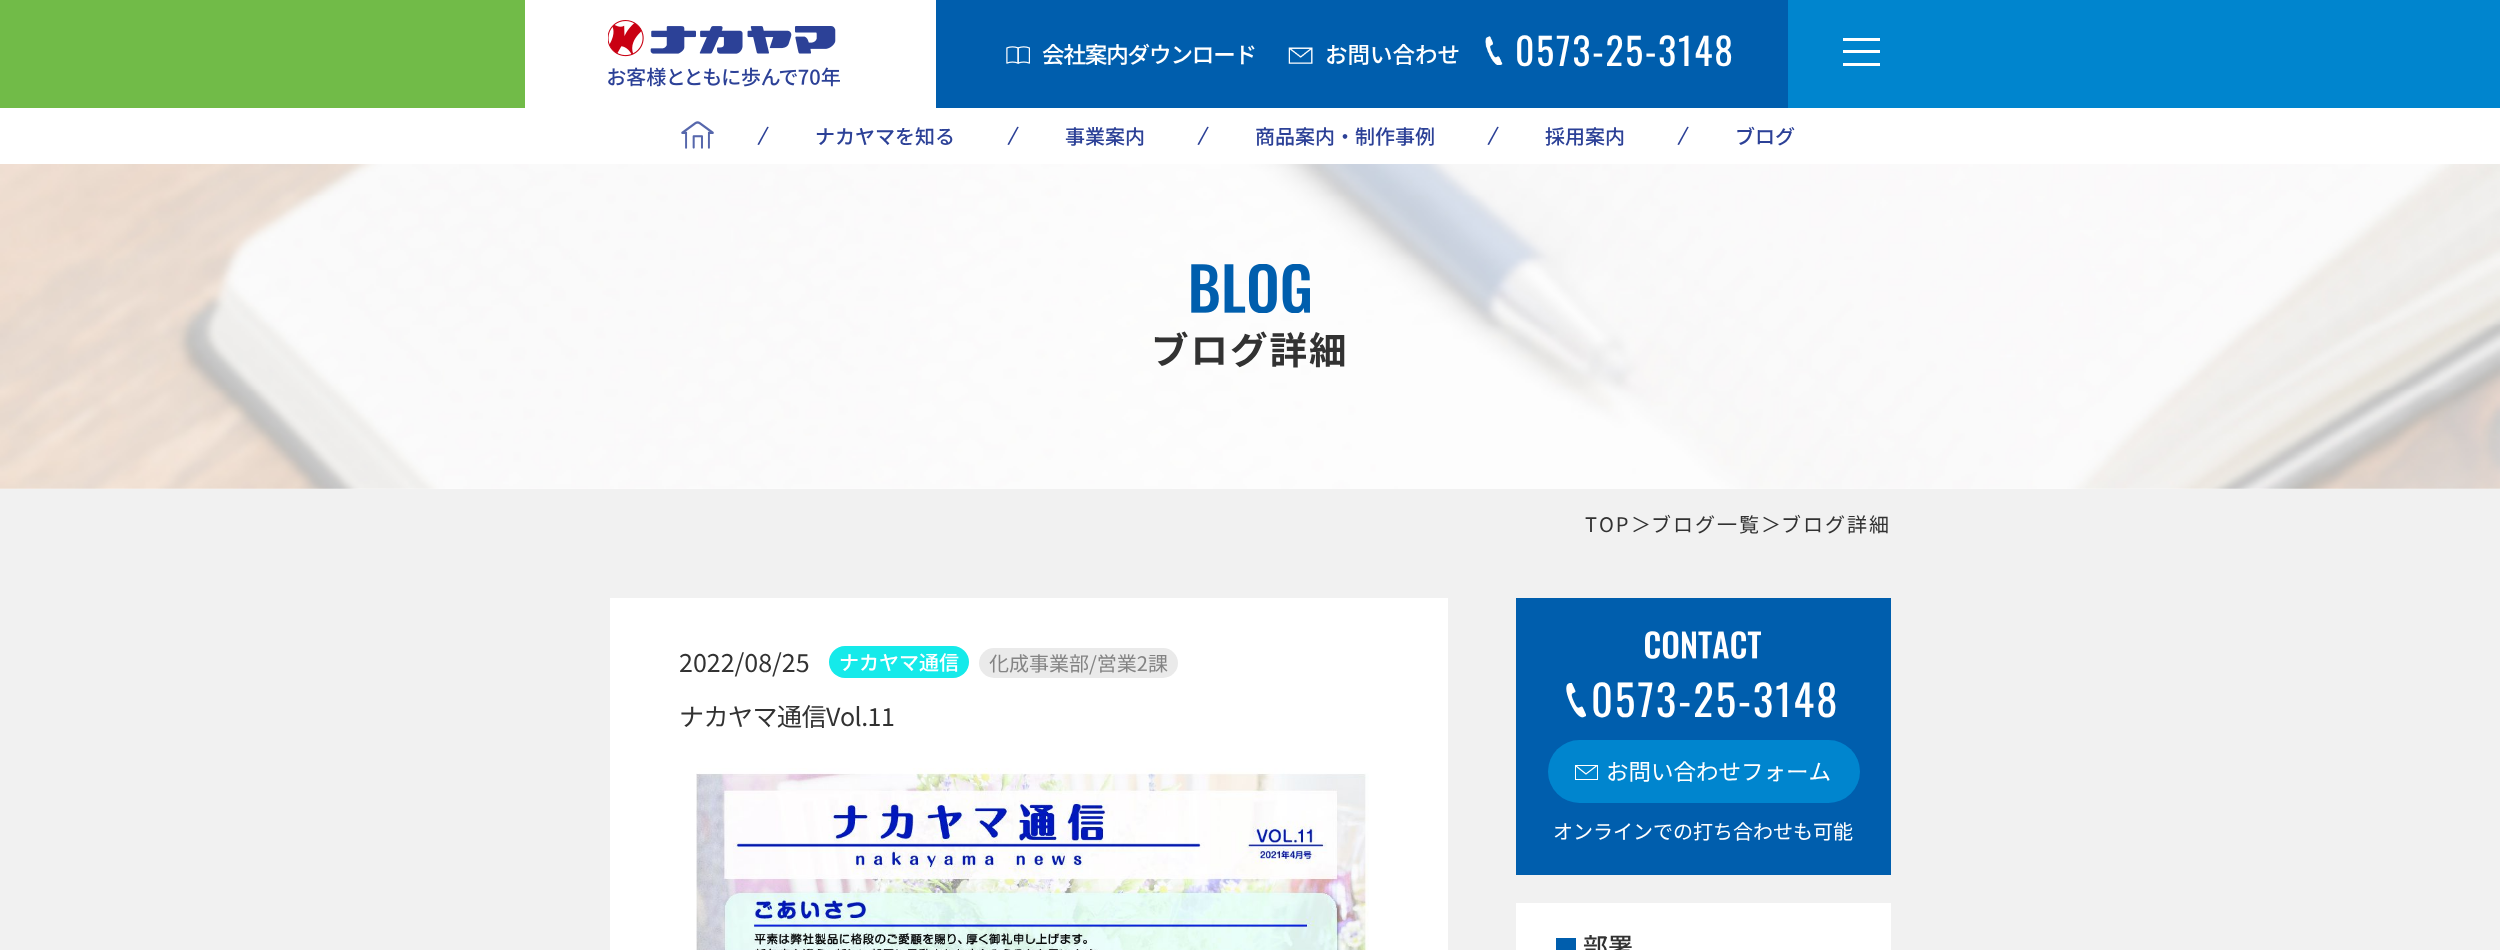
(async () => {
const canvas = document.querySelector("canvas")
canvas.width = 2500
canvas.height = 950
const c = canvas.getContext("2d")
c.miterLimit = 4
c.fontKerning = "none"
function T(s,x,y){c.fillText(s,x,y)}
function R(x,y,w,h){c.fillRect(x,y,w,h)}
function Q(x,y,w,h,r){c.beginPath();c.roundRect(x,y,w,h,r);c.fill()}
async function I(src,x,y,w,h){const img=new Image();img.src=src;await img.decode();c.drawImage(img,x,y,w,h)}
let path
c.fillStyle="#fff"
R(0,0,2500,950)
c.fillStyle="#71bb48"
R(0,0,525,108)
await I("1.png",608,20,232,67)
c.fillStyle="#005ead"
R(936,0,852,108)
await I("2.png",1006,46,24,18)
c.letterSpacing="-1.1px"
c.font="500 22.5px Noto Sans JP"
c.fillStyle="#fff"
T("会社案内ダウンロード",1042,63)
await I("3.png",1288,47,25,17)
c.letterSpacing="0px"
T("お問い合わせ",1325,63)
await I("4.png",1485,36,18,29)
c.letterSpacing="1.9px"
c.font="37.5px Oswald"
T("0573-25-3148",1515,66)
c.fillStyle="#0085ce"
R(1788,0,712,108)
c.fillStyle="#fff"
R(1843,38,37,3)
R(1843,50,37,3)
R(1843,63,37,3)
await I("5.png",681,121,33,28)
c.letterSpacing="0px"
c.font="500 20px Noto Sans JP"
c.fillStyle="#2c4197"
c.save()
c.translate(758,141)
c.rotate(13 * Math.PI / 180)
c.fillText("/",0,0)
c.restore()
T("ナカヤマを知る",815,144)
c.save()
c.translate(1008,141)
c.rotate(13 * Math.PI / 180)
c.fillText("/",0,0)
c.restore()
T("事業案内",1065,144)
c.save()
c.translate(1198,141)
c.rotate(13 * Math.PI / 180)
c.fillText("/",0,0)
c.restore()
T("商品案内・制作事例",1255,144)
c.save()
c.translate(1488,141)
c.rotate(13 * Math.PI / 180)
c.fillText("/",0,0)
c.restore()
T("採用案内",1545,144)
c.save()
c.translate(1678,141)
c.rotate(13 * Math.PI / 180)
c.fillText("/",0,0)
c.restore()
T("ブログ",1735,144)
await I("6.png",0,164,2500,325)
await I("7.png",1191,264,119,49)
c.letterSpacing="2px"
c.font="bold 37.5px Noto Sans JP"
c.fillStyle="#323232"
T("ブログ詳細",1151,364)
c.fillStyle="#f1f1f1"
R(0,489,2500,461)
c.font="20px Noto Sans JP"
c.fillStyle="#323232"
T("TOP",1585,532)
T("＞",1631,532)
T("ブログ一覧",1651,532)
T("＞",1761,532)
T("ブログ詳細",1781,532)
c.fillStyle="#fff"
R(610,598,838,352)
c.letterSpacing="0px"
c.font="25px Noto Sans JP"
c.fillStyle="#323232"
T("2022/08/25",679,672)
c.fillStyle="#15eaea"
Q(829,646,140,32,16)
c.font="500 20px Noto Sans JP"
c.fillStyle="#fff"
T("ナカヤマ通信",839,670)
c.fillStyle="#eaeaea"
Q(979,648,199,30,15)
c.font="20px Noto Sans JP"
c.fillStyle="#848484"
T("化成事業部/営業2課",989,671)
c.letterSpacing="-0.5px"
c.font="25px Noto Sans JP"
c.fillStyle="#323232"
T("ナカヤマ通信Vol.11",679,726)
await I("8.png",696,768,673,182)
c.fillStyle="#005ead"
R(1516,598,375,277)
await I("9.png",1645,631,116,28)
await I("10.png",1566,683,20,35)
c.letterSpacing="2.1px"
c.font="42.5px Oswald"
c.fillStyle="#fff"
T("0573-25-3148",1591,717)
c.fillStyle="#0085ce"
Q(1548,740,312,63,31.5)
c.strokeStyle="#fff"
c.strokeRect(1575.5,765.5,22,14)
path = new Path2D("M1576 766l10 8l11-8.5")
c.lineWidth=1.2
c.stroke(path)
c.letterSpacing="0px"
c.font="22.5px Noto Sans JP"
c.fillStyle="#fff"
T("お問い合わせフォーム",1606,780)
c.font="20px Noto Sans JP"
T("オンラインでの打ち合わせも可能",1553,839)
R(1516,903,375,47)
c.fillStyle="#005ead"
R(1556,938,20,12)
c.font="500 25px Noto Sans JP"
c.fillStyle="#323232"
T("部署",1583,956)
})()
